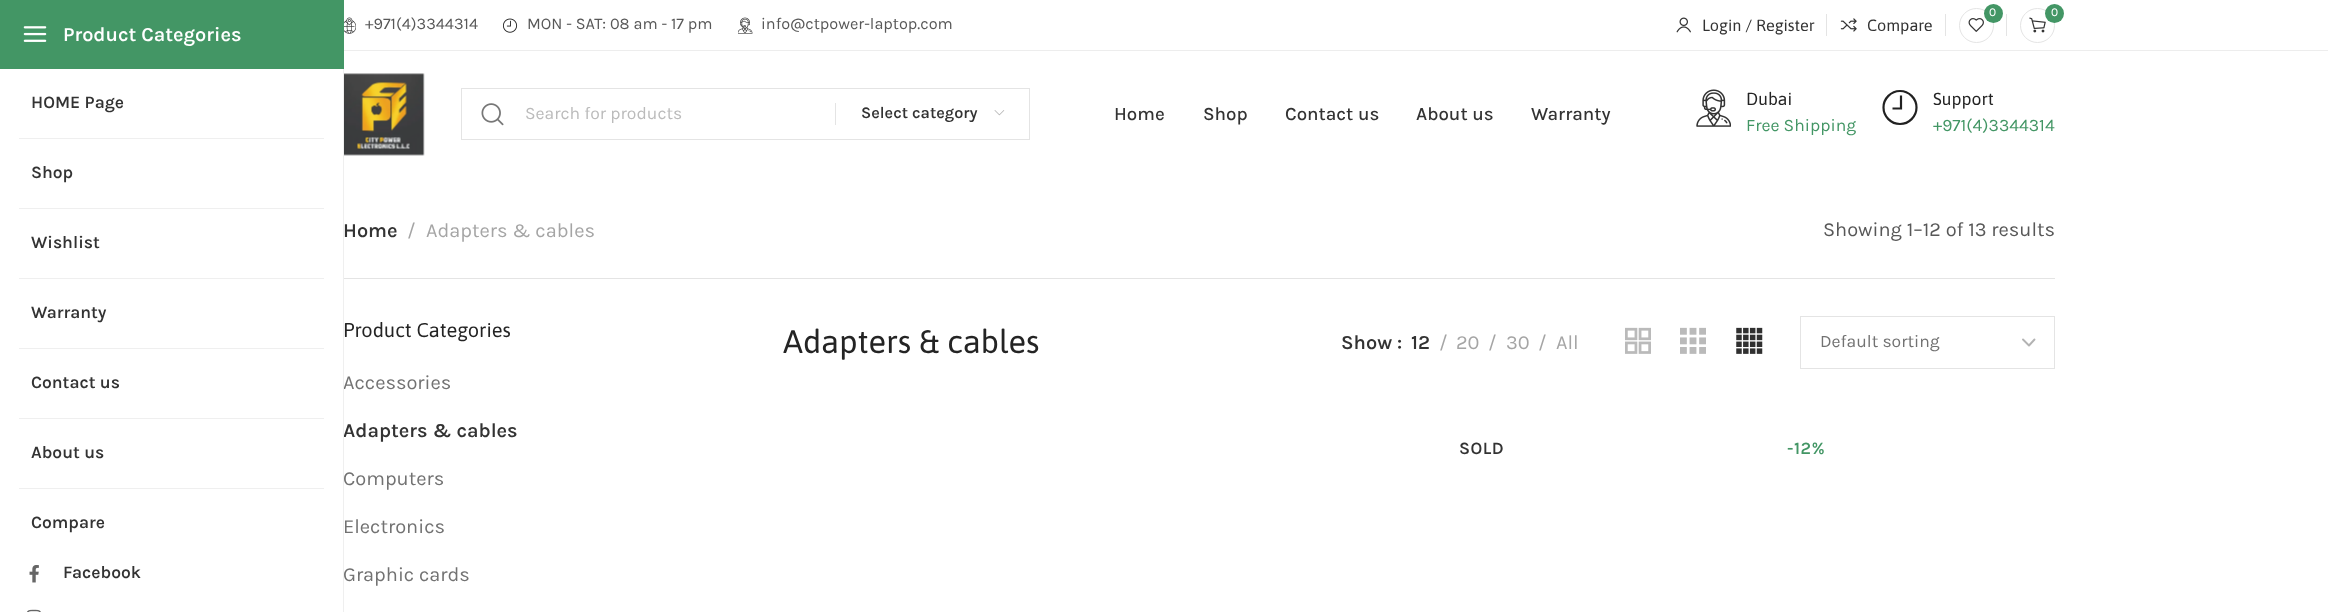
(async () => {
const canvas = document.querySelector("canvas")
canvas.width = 2328
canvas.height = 612
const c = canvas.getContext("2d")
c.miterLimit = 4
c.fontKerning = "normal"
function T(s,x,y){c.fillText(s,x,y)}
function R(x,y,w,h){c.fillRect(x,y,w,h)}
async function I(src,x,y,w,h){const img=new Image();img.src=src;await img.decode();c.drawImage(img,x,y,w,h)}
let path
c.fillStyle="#fff"
R(0,0,2328,612)
c.fillStyle="#e4e4e4"
R(343,278,1712,1)
c.font="20px Karla"
c.fillStyle="#727272"
T("Accessories",343,389)
c.font="600 20px Karla"
c.fillStyle="#333"
T("Adapters & cables",343,437)
c.font="20px Karla"
c.fillStyle="#727272"
T("Computers",343,485)
T("Graphic cards",343,581)
c.fillStyle="#efefef"
R(343,69,1,543)
c.fillStyle="#439665"
R(0,0,344,69)
await I("1.png",23,26,24,16)
c.font="600 20px Karla"
c.fillStyle="#fff"
T("Product Categories",63,41)
c.font="600 17.5px Karla"
c.fillStyle="#333"
T("HOME Page",31,108)
c.fillStyle="#efefef"
R(19,138,305,1)
c.fillStyle="#333"
T("Shop",31,178)
c.fillStyle="#efefef"
R(19,208,305,1)
c.fillStyle="#333"
T("Wishlist",31,248)
c.fillStyle="#efefef"
R(19,278,305,1)
c.fillStyle="#333"
T("Warranty",31,318)
c.fillStyle="#efefef"
R(19,348,305,1)
c.fillStyle="#333"
T("Contact us",31,388)
c.fillStyle="#efefef"
R(19,418,305,1)
c.fillStyle="#333"
T("About us",31,458)
c.fillStyle="#efefef"
R(19,488,305,1)
c.fillStyle="#333"
T("Compare",31,528)
await I("2.png",29,565,10,18)
T("Facebook",63,578)
await I("3.png",27,609,14,3)
c.fillStyle="#ededed"
R(344,50,1984,1)
await I("4.png",344,17,12,17)
c.font="16.25px Karla"
c.fillStyle="#585858"
T("+971(4)3344314",365,29)
await I("5.png",503,18,15,15)
T("MON - SAT: 08 am - 17 pm",527,29)
await I("6.png",738,17,15,17)
T("info@ctpower-laptop.com",761,29)
c.beginPath()
c.arc(1976.5,25.5,17,0,7)
c.strokeStyle="#e4e4e4"
c.stroke()
c.fillStyle="#439665"
c.beginPath()
c.arc(1993.5,13.5,9.5,0,7)
c.fill()
c.font="12px Karla"
c.fillStyle="#fff"
T("0",1989,16)
await I("7.png",1968,18,16,14)
c.beginPath()
c.arc(2037.5,25.5,17,0,7)
c.stroke()
await I("8.png",2029,17,17,16)
c.fillStyle="#439665"
c.beginPath()
c.arc(2054.5,13.5,9.5,0,7)
c.fill()
c.fillStyle="#fff"
T("0",2051,16)
await I("9.png",1676,17,15,16)
c.font="16.25px Asap"
c.fillStyle="#333"
T("Login / Register",1702,31)
c.fillStyle="#e4e4e4"
R(1826,14,1,22)
await I("10.png",1840,18,17,14)
c.fillStyle="#333"
T("Compare",1867,31)
c.fillStyle="#e4e4e4"
R(1945,14,1,22)
R(2006,14,1,22)
await I("11.png",344,73,81,83)
c.strokeRect(461.5,88.5,568,51)
await I("12.png",481,103,23,23)
c.font="17.5px Karla"
c.fillStyle="#bbb"
T("Search for products",525,119)
c.fillStyle="#e4e4e4"
R(835,103,1,22)
c.font="600 16.25px Karla"
c.fillStyle="#333"
T("Select category",861,118)
await I("13.png",994,110,11,6)
c.font="500 18.75px Karla"
T("Home",1114,120)
T("Shop",1203,120)
T("Contact us",1285,120)
T("About us",1416,120)
T("Warranty",1531,120)
await I("14.png",1696,89,35,38)
c.font="17.5px Asap"
c.fillStyle="#242424"
T("Dubai",1746,105)
c.font="17.5px Karla"
c.fillStyle="#439665"
T("Free Shipping",1746,131)
path = new Path2D("M1901 95.5v13h-8.5m24-1c0 9-7.5 16.5-16.5 16.5c-9 0-16.5-7.5-16.5-16.5c0-9 7.5-16.5 16.5-16.5c9 0 16.5 7.5 16.5 16.5z")
c.strokeStyle="#212121"
c.lineWidth=2.2
c.stroke(path)
c.font="17.5px Asap"
c.fillStyle="#242424"
T("Support",1933,105)
c.font="17.5px Karla"
c.fillStyle="#439665"
T("+971(4)3344314",1933,131)
c.font="600 20px Karla"
c.fillStyle="#333"
T("Home",343,237)
c.font="20px Karla"
c.fillStyle="#a5a5a5"
T("/",407,237)
T("Adapters & cables",426,237)
c.fillStyle="#585858"
T("Showing 1–12 of 13 results",1823,236)
c.font="20px Asap"
c.fillStyle="#242424"
T("Product Categories",343,337)
c.font="20px Karla"
c.fillStyle="#727272"
T("Electronics",343,533)
c.font="32.5px Asap"
c.fillStyle="#242424"
T("Adapters & cables",783,353)
c.font="600 20px Karla"
c.fillStyle="#333"
T("Show :",1341,349)
T("12",1411,349)
c.font="20px Karla"
c.fillStyle="#a5a5a5"
T("/",1439,349)
T("20",1456,349)
T("/",1488,349)
T("30",1506,349)
T("/",1538,349)
T("All",1556,349)
await I("15.png",1625,327,26,27)
await I("16.png",1680,327,26,27)
await I("17.png",1736,327,27,27)
path = new Path2D("M2023 339.5l6 6l5.5-6")
c.strokeStyle="#b3b3b3"
c.lineWidth=1.9
c.lineCap="round"
c.lineJoin="round"
c.stroke(path)
c.strokeStyle="#e4e4e4"
c.lineWidth=1
c.lineJoin="miter"
c.strokeRect(1800.5,316.5,254,52)
c.font="17.5px Karla"
c.fillStyle="#727272"
T("Default sorting",1820,347)
c.letterSpacing="0.5px"
c.font="600 17.5px Karla"
c.fillStyle="#333"
T("SOLD",1459,454)
c.fillStyle="#439665"
T("-12%",1787,454)
})()
